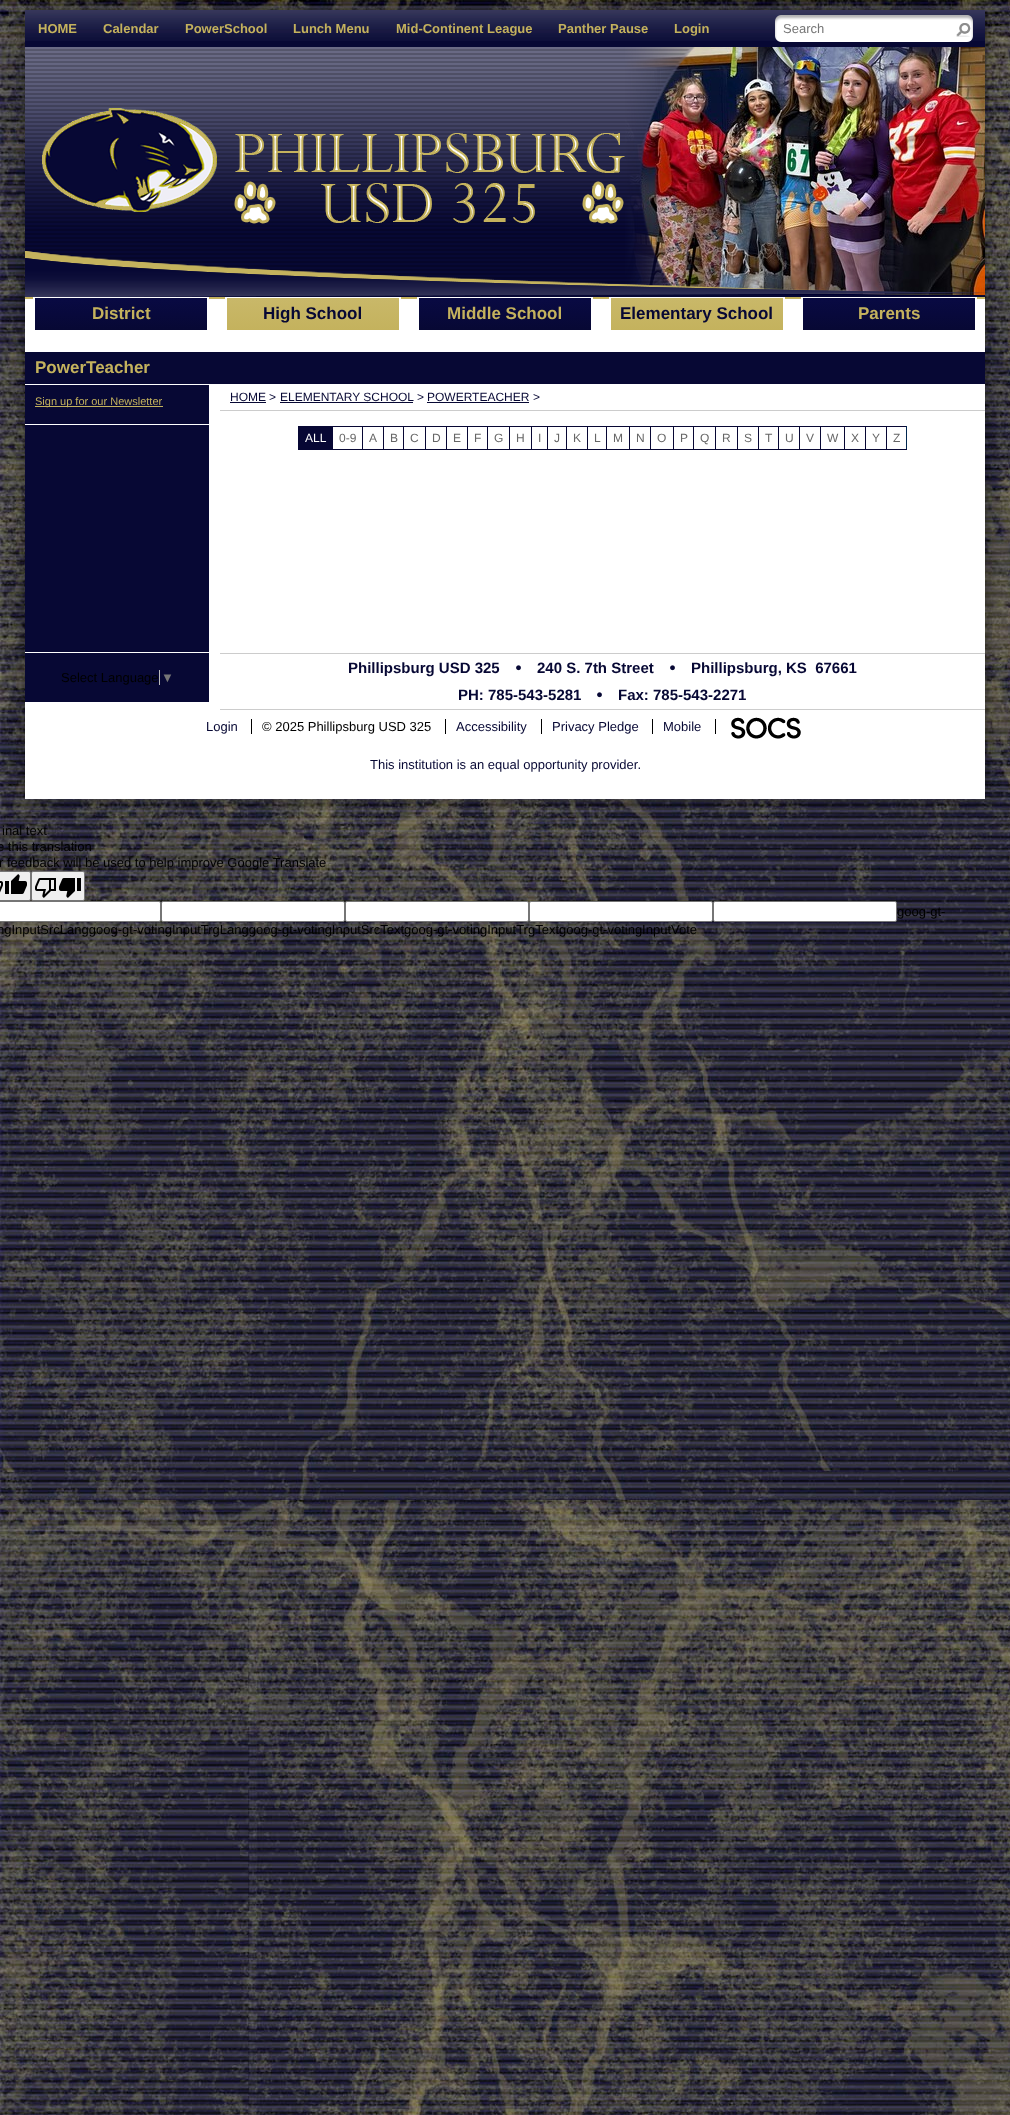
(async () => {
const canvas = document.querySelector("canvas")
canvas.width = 1010
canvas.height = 2115
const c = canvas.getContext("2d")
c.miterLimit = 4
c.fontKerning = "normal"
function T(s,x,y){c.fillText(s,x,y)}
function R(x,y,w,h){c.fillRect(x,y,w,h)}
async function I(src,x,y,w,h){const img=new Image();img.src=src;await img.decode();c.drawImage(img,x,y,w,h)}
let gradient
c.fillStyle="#fff"
R(0,0,1010,2115)
await I("1.png",0,0,1010,2115)
c.fillStyle="#00000080"
c.filter="blur(7.5px)"
c.beginPath()
c.rect(25,10,960,789)
c.fill()
c.filter="none"
await I("2.png",25,10,960,37)
c.font="bold 13px Liberation Sans"
c.fillStyle="#c4b25d"
T("HOME",38,33)
T("Calendar",103,33)
T("PowerSchool",185,33)
T("Lunch Menu",293,33)
T("Mid-Continent League",396,33)
T("Panther Pause",558,33)
T("Login",674,33)
await I("3.png",775,15,198,27)
c.font="13px Liberation Sans"
c.fillStyle="#767676"
T("Search",783,33)
await I("4.png",956,23,15,14)
await I("5.png",25,47,590,250)
await I("7.png",625,47,360,249)
await I("6.png",615,47,370,250)
c.fillStyle="#fff"
R(25,299,960,500)
await I("8.png",25,297,960,2)
gradient = c.createLinearGradient(121,298,121,330)
gradient.addColorStop(0,"#090a43")
gradient.addColorStop(1,"#070834")
c.fillStyle = gradient
R(35,298,172,32)
c.fillStyle="#fff"
R(33,297,176,1)
R(207,297,2,2)
R(33,297,2,2)
c.font="bold 17px Liberation Sans"
c.fillStyle="#c4b25d"
T("District",92,319)
c.fillStyle="#fff"
R(225,297,176,2)
gradient = c.createLinearGradient(313,298,313,330)
gradient.addColorStop(0,"#c9b869")
gradient.addColorStop(1,"#c4b25d")
c.fillStyle = gradient
R(227,298,172,32)
c.fillStyle="#070834"
T("High School",263,319)
gradient = c.createLinearGradient(505,298,505,330)
gradient.addColorStop(0,"#090a43")
gradient.addColorStop(1,"#070834")
c.fillStyle = gradient
R(419,298,172,32)
c.fillStyle="#fff"
R(417,297,176,1)
R(591,297,2,2)
R(417,297,2,2)
c.fillStyle="#c4b25d"
T("Middle School",447,319)
c.fillStyle="#fff"
R(609,297,176,2)
gradient = c.createLinearGradient(697,298,697,330)
gradient.addColorStop(0,"#c9b869")
gradient.addColorStop(1,"#c4b25d")
c.fillStyle = gradient
R(611,298,172,32)
c.fillStyle="#070834"
T("Elementary School",620,319)
gradient = c.createLinearGradient(889,298,889,330)
gradient.addColorStop(0,"#090a43")
gradient.addColorStop(1,"#070834")
c.fillStyle = gradient
R(803,298,172,32)
c.fillStyle="#fff"
R(801,297,176,1)
R(975,297,2,2)
R(801,297,2,2)
c.fillStyle="#c4b25d"
T("Parents",858,319)
c.fillStyle="#070834"
R(25,385,184,267)
R(25,352,960,32)
c.fillStyle="#c4b25d"
T("PowerTeacher",35,373)
c.fillStyle="#fff"
R(25,424,184,1)
c.fillStyle="#c4b25d"
R(35,406,128,1)
c.font="11px Liberation Sans"
T("Sign up for our Newsletter",35,405)
c.fillStyle="#ccc"
R(220,410,765,1)
c.font="12px Liberation Sans"
c.fillStyle="#070834"
T("HOME",230,401)
R(230,402,36,1)
T(">",269,401)
T("ELEMENTARY SCHOOL",280,401)
R(280,402,133,1)
T(">",417,401)
T("POWERTEACHER",427,401)
R(427,402,102,1)
T(">",533,401)
c.fillStyle="#070734"
R(298,426,34,24)
c.fillStyle="#fff"
T("ALL",305,442)
c.fillStyle="#070734"
R(332,426,575,1)
R(332,449,554,1)
R(332,426,1,24)
c.fillStyle="#666"
T("0-9",339,442)
c.fillStyle="#070734"
R(362,426,1,24)
c.fillStyle="#666"
T("A",369,442)
c.fillStyle="#070734"
R(383,426,1,24)
c.fillStyle="#666"
T("B",390,442)
c.fillStyle="#070734"
R(403,426,1,24)
c.fillStyle="#666"
T("C",410,442)
c.fillStyle="#070734"
R(425,426,1,24)
c.fillStyle="#666"
T("D",432,442)
c.fillStyle="#070734"
R(446,426,1,24)
c.fillStyle="#666"
T("E",453,442)
c.fillStyle="#070734"
R(467,426,1,24)
c.fillStyle="#666"
T("F",474,442)
c.fillStyle="#070734"
R(487,426,1,24)
c.fillStyle="#666"
T("G",494,442)
c.fillStyle="#070734"
R(509,426,1,24)
c.fillStyle="#666"
T("H",516,442)
c.fillStyle="#070734"
R(531,426,1,24)
c.fillStyle="#666"
T("I",538,442)
c.fillStyle="#070734"
R(547,426,1,24)
c.fillStyle="#666"
T("J",554,442)
c.fillStyle="#070734"
R(566,426,1,24)
c.fillStyle="#666"
T("K",573,442)
c.fillStyle="#070734"
R(587,426,1,24)
c.fillStyle="#666"
T("L",594,442)
c.fillStyle="#070734"
R(606,426,1,24)
c.fillStyle="#666"
T("M",613,442)
c.fillStyle="#070734"
R(629,426,1,24)
c.fillStyle="#666"
T("N",636,442)
c.fillStyle="#070734"
R(650,426,1,24)
c.fillStyle="#666"
T("O",657,442)
c.fillStyle="#070734"
R(673,426,1,24)
c.fillStyle="#666"
T("P",680,442)
c.fillStyle="#070734"
R(693,426,1,24)
c.fillStyle="#666"
T("Q",700,442)
c.fillStyle="#070734"
R(715,426,1,24)
c.fillStyle="#666"
T("R",722,442)
c.fillStyle="#070734"
R(737,426,1,24)
c.fillStyle="#666"
T("S",744,442)
c.fillStyle="#070734"
R(758,426,1,24)
c.fillStyle="#666"
T("T",765,442)
c.fillStyle="#070734"
R(778,426,1,24)
c.fillStyle="#666"
T("U",785,442)
c.fillStyle="#070734"
R(799,426,1,24)
c.fillStyle="#666"
T("V",806,442)
c.fillStyle="#070734"
R(820,426,1,24)
c.fillStyle="#666"
T("W",827,442)
c.fillStyle="#070734"
R(844,426,1,24)
c.fillStyle="#666"
T("X",851,442)
c.fillStyle="#070734"
R(865,426,1,24)
c.fillStyle="#666"
T("Y",872,442)
c.fillStyle="#002750"
R(906,426,1,24)
c.fillStyle="#070734"
R(886,449,21,1)
R(886,426,1,24)
c.fillStyle="#666"
T("Z",893,442)
c.fillStyle="#070834"
R(25,653,184,49)
c.font="13px Liberation Sans"
c.fillStyle="#000"
T("Select Language",61,682)
c.fillStyle="#bbb"
R(159,670,1,15)
c.fillStyle="#767676"
T("▼",161,682)
c.fillStyle="#ccc"
R(220,653,765,1)
R(220,709,765,1)
c.font="bold 15px Liberation Sans"
c.fillStyle="#070834"
T("Phillipsburg USD 325",348,673)
await I("9.png",516,665,5,6)
T("240 S. 7th Street",537,673)
await I("9.png",670,665,5,6)
T("Phillipsburg, KS  67661",691,673)
T("PH: 785-543-5281",458,700)
await I("9.png",597,692,5,6)
T("Fax: 785-543-2271",618,700)
c.font="13px Liberation Sans"
T("Login",206,731)
c.fillStyle="#000"
T("© 2025 Phillipsburg USD 325",262,731)
R(251,719,1,15)
c.fillStyle="#070834"
T("Accessibility",456,731)
c.fillStyle="#000"
R(445,719,1,15)
c.fillStyle="#070834"
T("Privacy Pledge",552,731)
c.fillStyle="#000"
R(541,719,1,15)
c.fillStyle="#070834"
T("Mobile",663,731)
c.fillStyle="#000"
R(652,719,1,15)
R(715,719,1,15)
await I("10.png",731,717,70,22)
c.fillStyle="#070834"
T("This institution is an equal opportunity provider.",370,769)
c.fillStyle="#000"
T("inal text",2,835)
T("e this translation",-3,851)
T("r feedback will be used to help improve Google Translate",-1,867)
c.fillStyle="#efefef"
c.beginPath()
c.roundRect(-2.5,871.5,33,29,1.5)
c.fill()
c.strokeStyle="#767676"
c.stroke()
await I("11.png",0,881,3,12)
await I("12.png",5,874,22,20)
c.beginPath()
c.roundRect(31.5,871.5,53,29,1.5)
c.fill()
c.stroke()
await I("13.png",35,878,21,20)
await I("14.png",59,878,22,20)
c.fillStyle="#fff"
c.beginPath()
c.roundRect(-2.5,901.5,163,20,1.5)
c.fill()
c.stroke()
c.beginPath()
c.roundRect(161.5,901.5,183,20,1.5)
c.fill()
c.stroke()
c.beginPath()
c.roundRect(345.5,901.5,183,20,1.5)
c.fill()
c.stroke()
c.beginPath()
c.roundRect(529.5,901.5,183,20,1.5)
c.fill()
c.stroke()
c.beginPath()
c.roundRect(713.5,901.5,183,20,1.5)
c.fill()
c.stroke()
c.fillStyle="#000"
T("goog-gt-",897,916)
T("ngInputSrcLanggoog-gt-votingInputTrgLanggoog-gt-votingInputSrcTextgoog-gt-votingInputTrgTextgoog-gt-votingInputVote",-3,934)
})()
